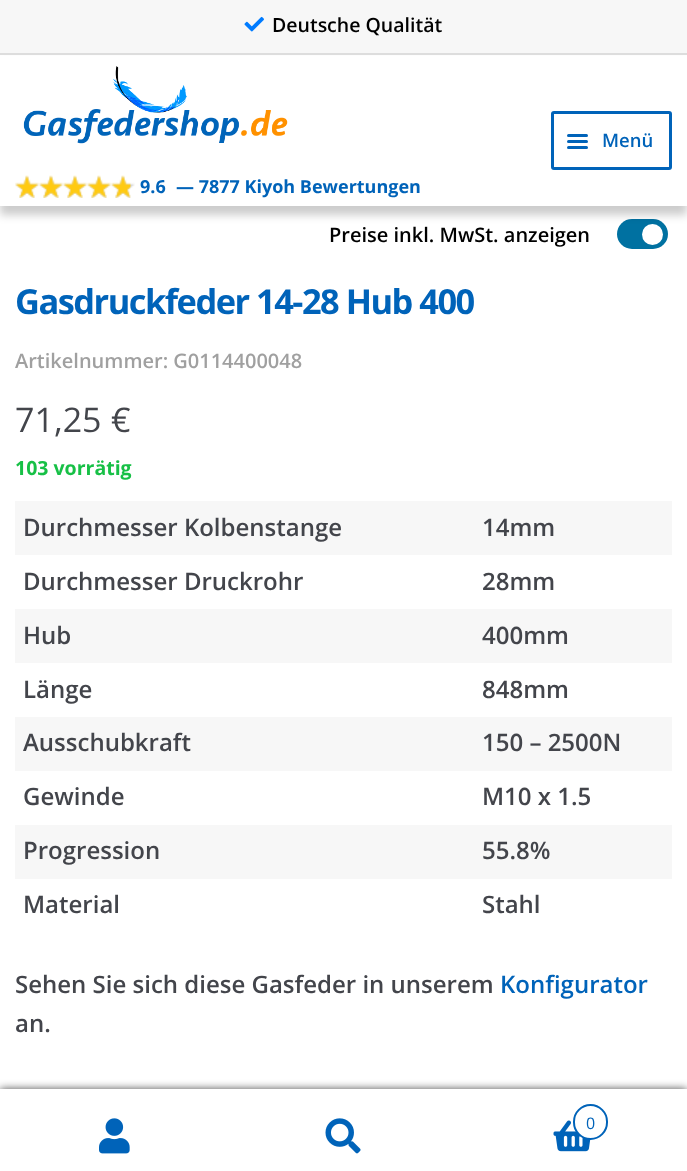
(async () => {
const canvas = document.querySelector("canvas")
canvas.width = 687
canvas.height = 1171
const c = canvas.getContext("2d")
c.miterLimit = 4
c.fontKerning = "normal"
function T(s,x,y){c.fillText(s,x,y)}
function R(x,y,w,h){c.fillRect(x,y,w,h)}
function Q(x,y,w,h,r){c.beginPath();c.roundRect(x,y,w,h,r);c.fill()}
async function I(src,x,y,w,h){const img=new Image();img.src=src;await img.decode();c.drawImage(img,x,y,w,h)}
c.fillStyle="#fff"
R(0,0,687,1171)
c.fillStyle="#0071a1"
Q(617,219,51,30,15)
c.fillStyle="#fff"
c.beginPath()
c.arc(652.5,234.5,10.5,0,7)
c.fill()
c.fillStyle="#00000033"
c.filter="blur(4.5px)"
c.beginPath()
c.rect(0,63,687,152)
c.fill()
c.filter="none"
c.fillStyle="#f7f7f7"
R(0,0,687,53)
c.fillStyle="#ddd"
R(0,53,687,2)
await I("1.png",244,16,20,16)
c.font="600 19.5px Open Sans"
c.fillStyle="#000"
T("Deutsche Qualität",272,32)
c.fillStyle="#fff"
R(0,56,687,150)
await I("2.png",23,66,265,78)
c.beginPath()
c.roundRect(552.5,112.5,118,56,1.5)
c.strokeStyle="#0063b9"
c.lineWidth=3
c.stroke()
c.fillStyle="#0063b9"
Q(567,134,21,3,1.5)
Q(567,140,21,3,1.5)
c.font="600 18.5px Open Sans"
T("Menü",602,147)
Q(567,146,21,3,1.5)
await I("3.png",15,176,120,22)
await I("4.png",15,175,116,23)
c.font="bold 18px Open Sans"
T("9.6",140,193)
T("— 7877 Kiyoh Bewertungen",176,193)
c.font="600 20px Open Sans"
c.fillStyle="#000"
T("Preise inkl. MwSt. anzeigen",329,242)
c.letterSpacing="-1.5px"
c.font="bold 34.4px Open Sans"
c.fillStyle="#0063b9"
T("Gasdruckfeder 14-28 Hub 400",15,314)
c.letterSpacing="0px"
c.font="600 20px Open Sans"
c.fillStyle="#a0a0a0"
T("Artikelnummer: G0114400048",15,368)
c.font="34px Open Sans"
c.fillStyle="#43454b"
T("71,25",15,432)
T("€",111,432)
c.font="bold 19.5px Open Sans"
c.fillStyle="#17c046"
T("103 vorrätig",15,475)
c.fillStyle="#f7f7f7"
R(15,501,657,54)
c.font="600 24px Open Sans"
c.fillStyle="#43454b"
T("Durchmesser Kolbenstange",23,536)
T("14mm",482,536)
T("Durchmesser Druckrohr",23,590)
T("28mm",482,590)
c.fillStyle="#f7f7f7"
R(15,609,657,54)
c.fillStyle="#43454b"
T("Hub",23,644)
T("400mm",482,644)
T("Länge",23,698)
T("848mm",482,698)
c.fillStyle="#f7f7f7"
R(15,717,657,54)
c.fillStyle="#43454b"
T("Ausschubkraft",23,751)
T("150 – 2500N",482,751)
T("Gewinde",23,805)
T("M10 x 1.5",482,805)
c.fillStyle="#f7f7f7"
R(15,825,657,54)
c.fillStyle="#43454b"
T("Progression",23,859)
T("55.8%",482,859)
T("Material",23,913)
T("Stahl",482,913)
T("Sehen Sie sich diese Gasfeder in unserem",15,993)
c.fillStyle="#0063b9"
T("Konfigurator",500,993)
c.fillStyle="#43454b"
T("an.",15,1032)
c.fillStyle="#000000b3"
c.filter="blur(4.5px)"
c.beginPath()
c.rect(0,1089,687,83)
c.fill()
c.filter="none"
c.fillStyle="#fff"
R(0,1089,687,2)
R(0,1091,687,80)
await I("5.png",99,1118,31,36)
await I("6.png",325,1118,36,36)
await I("7.png",553,1120,38,32)
c.beginPath()
c.roundRect(574,1105,33,34,16.5)
c.fill()
c.lineWidth=2
c.stroke()
c.font="16px Open Sans"
c.fillStyle="#0063b9"
T("0",586,1129)
})()
